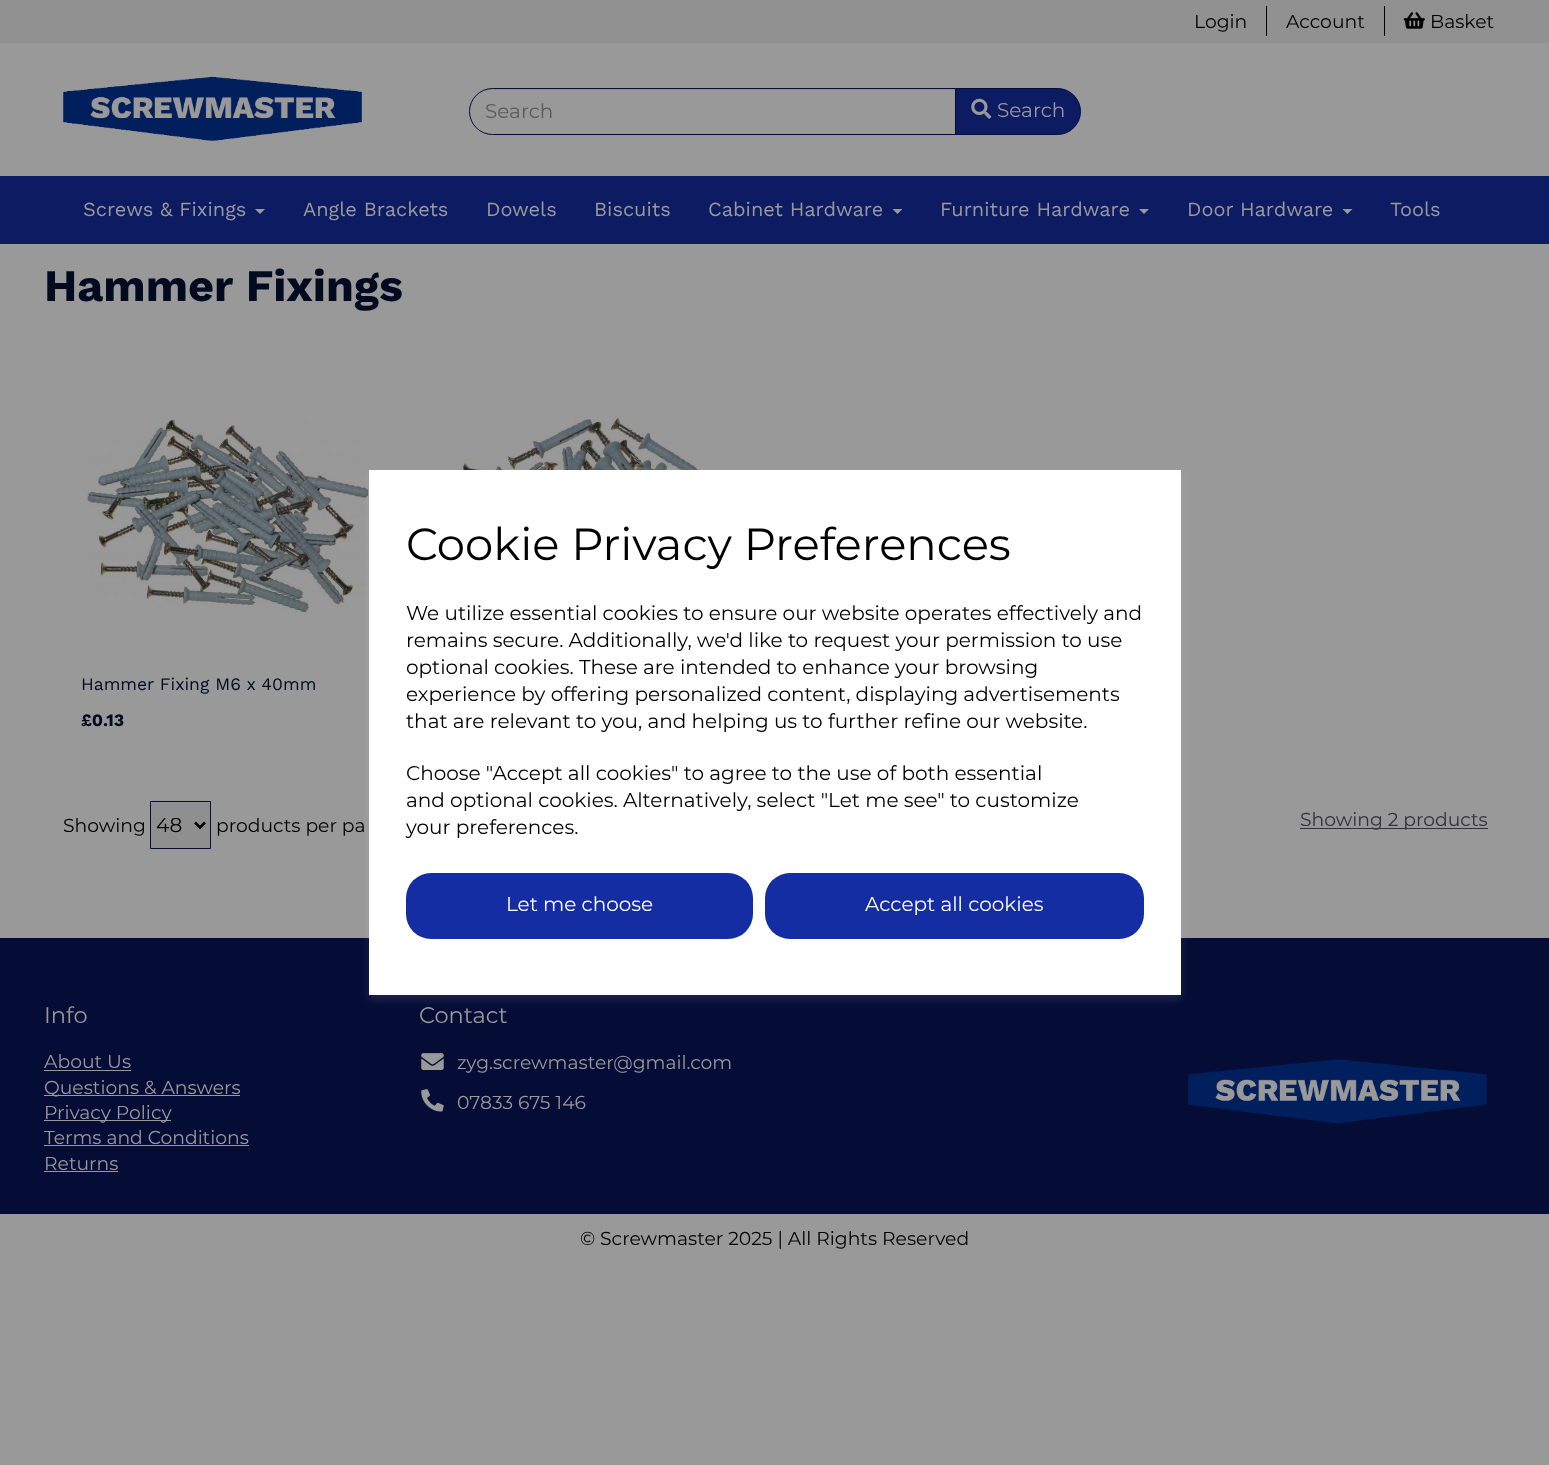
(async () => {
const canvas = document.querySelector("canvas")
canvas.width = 1549
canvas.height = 1465
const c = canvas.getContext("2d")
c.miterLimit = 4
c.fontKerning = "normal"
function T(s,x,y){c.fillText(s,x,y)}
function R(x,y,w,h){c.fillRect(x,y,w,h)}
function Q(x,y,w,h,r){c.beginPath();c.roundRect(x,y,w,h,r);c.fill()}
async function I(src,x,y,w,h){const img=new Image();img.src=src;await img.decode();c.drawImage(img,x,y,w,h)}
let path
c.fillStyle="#999"
R(0,0,1549,1465)
c.fillStyle="#919191"
R(0,0,1549,43)
c.fillStyle="#000"
R(1266,6,1,30)
c.font="18.75px Montserrat"
T("Login",1194,28)
R(1384,6,1,30)
T("Account",1286,28)
await I("1.png",1403,12,22,17)
T("Basket",1430,28)
await I("2.png",63,76,299,65)
c.fillStyle="#8e8e8e"
path = new Path2D("M492 90h463v-1h-463c-12 0-22 10-22 23c0-12 10-22 22-22z")
c.fill(path)
c.beginPath()
c.roundRect(469.5,88.5,486,46,[23,0,0,23])
c.strokeStyle="#050d37"
c.stroke()
c.font="20px Montserrat"
c.fillStyle="#5c5c5c"
T("Search",485,118)
c.fillStyle="#0c1b62"
c.beginPath()
c.roundRect(955.5,88.5,125,46,[0,23,23,0])
c.fill()
c.stroke()
await I("3.png",971,98,21,21)
c.fillStyle="#999"
T("Search",997,117)
c.fillStyle="#0c1b62"
R(0,176,1549,68)
c.font="20px Work Sans"
c.fillStyle="#999"
T("Screws & Fixings",83,216)
path = new Path2D("M255 209h10l-5 5z")
c.fill(path)
T("Angle Brackets",303,216)
T("Dowels",486,216)
T("Biscuits",594,216)
T("Cabinet Hardware",708,216)
path = new Path2D("M892.5 209h10l-5 5z")
c.fill(path)
T("Furniture Hardware",940,216)
path = new Path2D("M1139 209h10l-5 5z")
c.fill(path)
T("Door Hardware",1187,216)
path = new Path2D("M1342.5 209h10l-5 5z")
c.fill(path)
T("Tools",1390,216)
c.font="bold 45px Work Sans"
c.fillStyle="#010a1f"
T("Hammer Fixings",44,301)
await I("4.png",453,414,280,56)
await I("5.png",86,419,284,196)
c.font="17.5px Work Sans"
T("Hammer Fixing M6 x 40mm",81,690)
c.font="bold 17.5px Work Sans"
T("£0.13",81,726)
c.font="18.75px Montserrat"
c.fillStyle="#000"
T("Showing",63,832)
c.fillStyle="#8f8f8f"
c.beginPath()
c.rect(150.5,801.5,60,47)
c.fill()
c.stroke()
path = new Path2D("M195 822.5l5 5l5-5")
c.strokeStyle="#000"
c.lineWidth=2.5
c.stroke(path)
c.font="20px Montserrat"
c.fillStyle="#000"
T("48",156,832)
c.font="18.75px Montserrat"
T("products per pa",216,832)
c.fillStyle="#313338"
R(1300,828,188,1)
T("Showing 2 products",1300,826)
c.fillStyle="#050d37"
R(0,938,1549,276)
c.fillStyle="#ffffff1a"
c.filter="blur(5px)"
c.beginPath()
c.rect(369,475,812,525)
c.fill()
c.filter="none"
c.fillStyle="#fff"
R(369,470,812,525)
c.font="45px Montserrat"
c.fillStyle="#000"
T("Cookie Privacy Preferences",406,560)
c.font="20px Montserrat"
T("We utilize essential cookies to ensure our website operates effectively and",406,620)
T("remains secure. Additionally, we'd like to request your permission to use",406,647)
T("optional cookies. These are intended to enhance your browsing",406,674)
T("experience by offering personalized content, displaying advertisements",406,701)
T("that are relevant to you, and helping us to further refine our website.",406,728)
T("Choose \"Accept all cookies\" to agree to the use of both essential",406,780)
T("and optional cookies. Alternatively, select \"Let me see\" to customize",406,807)
T("your preferences.",406,834)
c.fillStyle="#142da3"
Q(406,873,347,66,25)
c.fillStyle="#fff"
T("Let me choose",506,911)
c.fillStyle="#142da3"
Q(765,873,379,66,25)
c.fillStyle="#fff"
T("Accept all cookies",865,911)
c.font="22.5px Montserrat"
c.fillStyle="#999"
T("Info",44,1023)
c.font="18.75px Montserrat"
T("About Us",44,1068)
R(44,1070,87,1)
R(44,1095,196,1)
T("Questions & Answers",44,1094)
R(44,1120,127,1)
T("Privacy Policy",44,1119)
T("Terms and Conditions",44,1144)
R(44,1145,205,1)
T("Returns",44,1170)
R(44,1171,74,1)
c.font="22.5px Montserrat"
T("Contact",419,1023)
await I("6.png",421,1053,23,17)
c.font="18.75px Montserrat"
T("zyg.screwmaster@gmail.com",457,1069)
await I("7.png",421,1089,23,23)
T("07833 675 146",457,1109)
await I("8.png",1188,1059,299,65)
c.fillStyle="#000"
T("© Screwmaster 2025 | All Rights Reserved",580,1245)
})()
